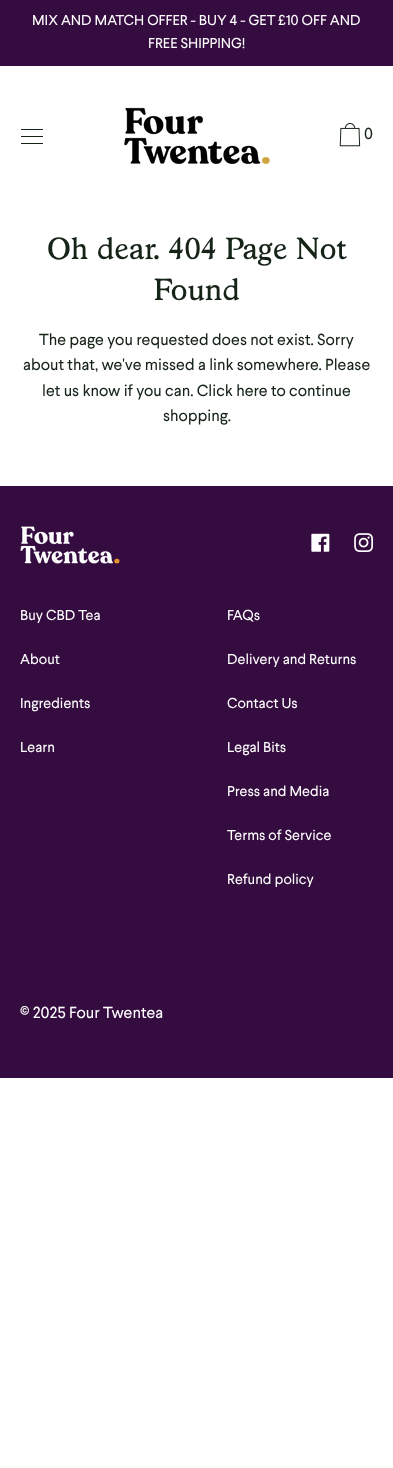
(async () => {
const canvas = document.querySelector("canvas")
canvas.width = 393
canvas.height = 1468
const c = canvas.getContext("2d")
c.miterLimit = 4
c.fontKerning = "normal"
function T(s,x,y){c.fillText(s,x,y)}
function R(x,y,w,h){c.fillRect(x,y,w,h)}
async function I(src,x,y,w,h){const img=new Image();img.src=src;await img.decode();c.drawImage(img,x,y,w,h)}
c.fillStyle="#fff"
R(0,0,393,1468)
c.fillStyle="#350c3f"
R(0,0,393,66)
c.font="14.4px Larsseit"
c.fillStyle="#fff"
T("MIX AND MATCH OFFER - BUY 4 - GET £10 OFF AND",32,25)
T("FREE SHIPPING!",148,48)
await I("1.png",21,129,22,15)
await I("2.png",124,107,146,58)
await I("3.png",339,123,22,24)
c.font="16px Larsseit"
c.fillStyle="#162317"
T("0",364,139)
c.font="29.6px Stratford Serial"
T("Oh dear. 404 Page Not",47,259)
T("Found",154,300)
c.font="16px Larsseit"
T("The page you requested does not exist. Sorry",39,345)
T("about that, we've missed a link somewhere. Please",23,370)
T("let us know if you can. Click here to continue",42,396)
T("shopping.",163,421)
c.fillStyle="#350c3f"
R(0,486,393,592)
await I("4.png",20,526,100,38)
await I("5.png",311,533,19,19)
await I("6.png",354,533,19,19)
c.font="14.4px Larsseit"
c.fillStyle="#fff"
T("Buy CBD Tea",20,620)
T("About",20,664)
T("Ingredients",20,708)
T("Learn",20,752)
T("FAQs",227,620)
T("Delivery and Returns",227,664)
T("Contact Us",227,708)
T("Legal Bits",227,752)
T("Press and Media",227,796)
T("Terms of Service",227,840)
T("Refund policy",227,884)
c.font="16px Larsseit"
T("© 2025 Four Twentea",20,1018)
})()
